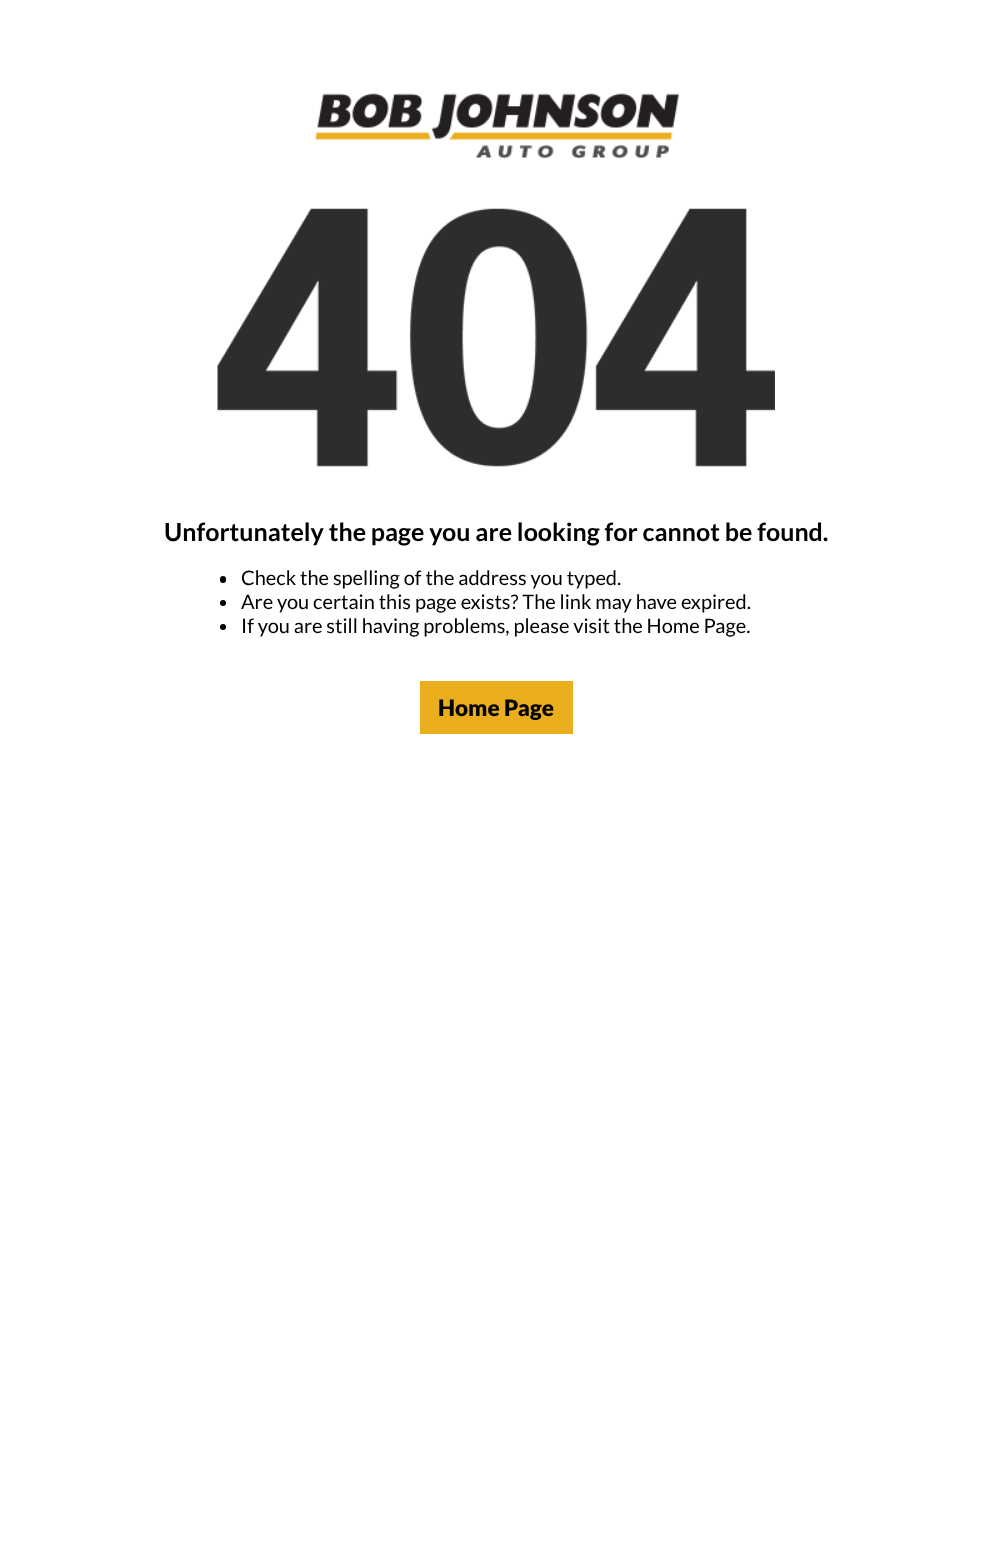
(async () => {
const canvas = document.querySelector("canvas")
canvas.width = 992
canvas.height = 1543
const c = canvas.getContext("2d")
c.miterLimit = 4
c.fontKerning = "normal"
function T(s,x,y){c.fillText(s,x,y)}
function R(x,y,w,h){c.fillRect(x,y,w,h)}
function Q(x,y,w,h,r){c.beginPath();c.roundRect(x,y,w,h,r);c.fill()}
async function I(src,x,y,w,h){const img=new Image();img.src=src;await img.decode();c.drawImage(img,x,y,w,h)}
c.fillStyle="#fff"
R(0,0,992,1543)
await I("1.png",315,93,364,66)
await I("2.png",217,208,558,259)
c.font="bold 25px Lato"
c.fillStyle="#000"
T("Unfortunately the page you are looking for cannot be found.",164,541)
Q(220,576,6,7,3)
c.font="20px Lato"
T("Check the spelling of the address you typed.",241,585)
c.beginPath()
c.arc(223,603,3,0,7)
c.fill()
T("Are you certain this page exists? The link may have expired.",241,609)
c.beginPath()
c.arc(223,627,3,0,7)
c.fill()
T("If you are still having problems, please visit the Home Page.",241,633)
c.fillStyle="#eaad1e"
R(420,681,153,53)
c.font="900 22.5px Lato"
c.fillStyle="#000"
T("Home Page",438,716)
})()
